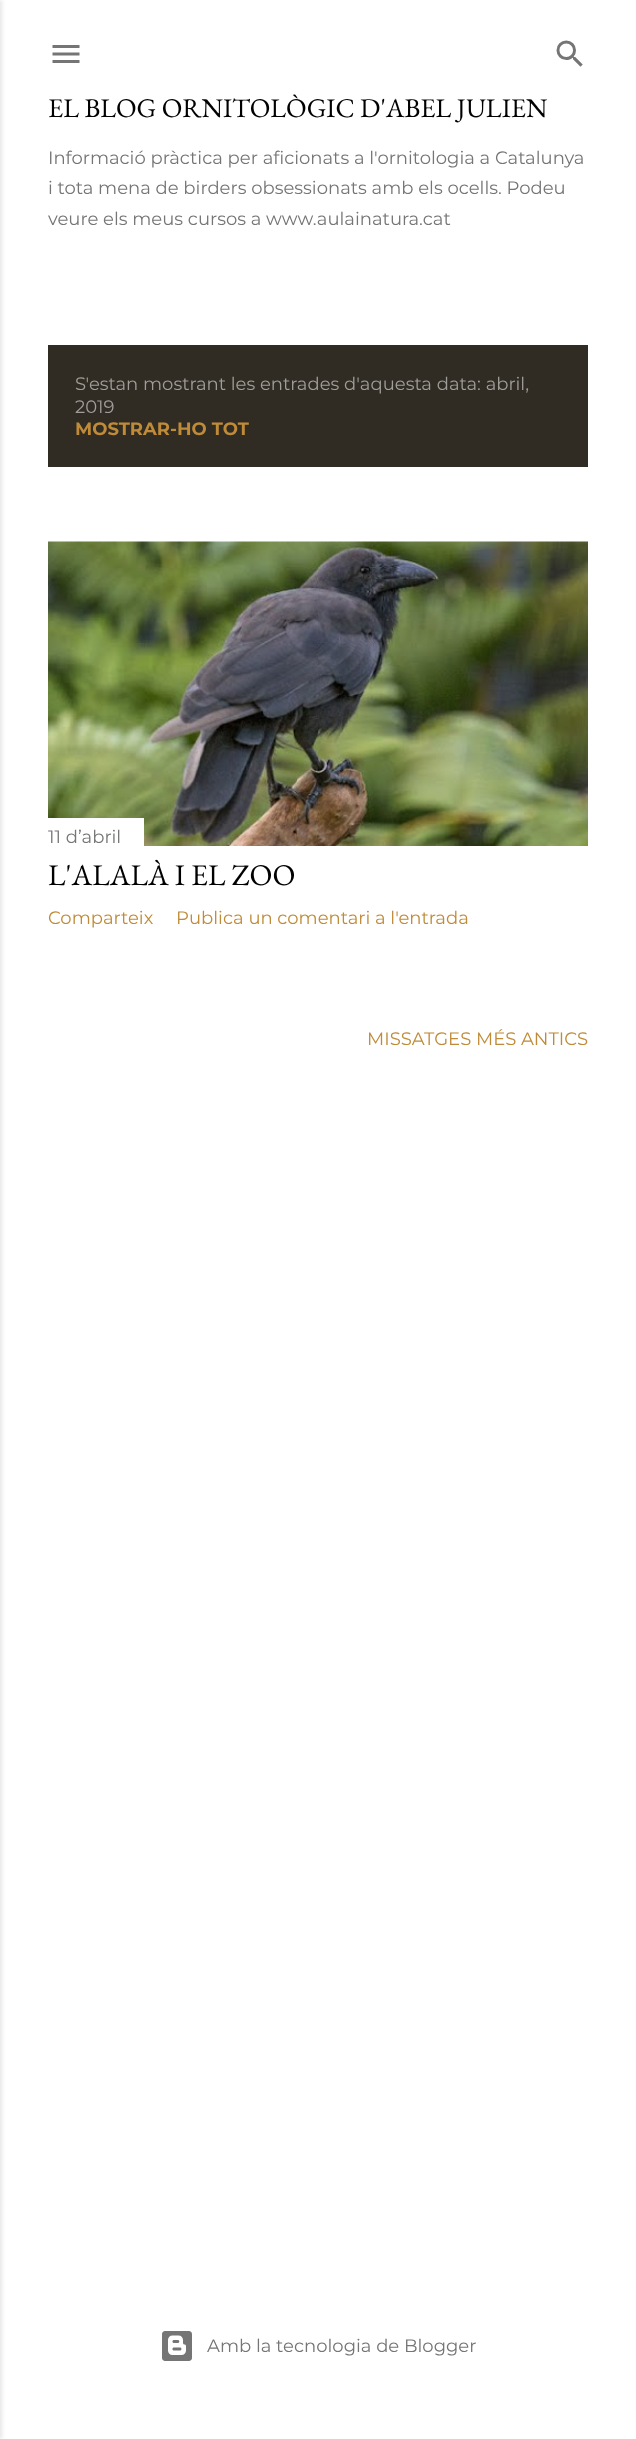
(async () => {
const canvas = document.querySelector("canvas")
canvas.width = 636
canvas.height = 2439
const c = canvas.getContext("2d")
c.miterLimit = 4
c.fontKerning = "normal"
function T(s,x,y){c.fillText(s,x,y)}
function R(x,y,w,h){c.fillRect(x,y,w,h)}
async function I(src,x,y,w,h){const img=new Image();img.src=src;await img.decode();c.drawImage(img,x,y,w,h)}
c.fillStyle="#fff"
R(0,0,636,2439)
c.fillStyle="#0000001a"
c.filter="blur(2px)"
c.beginPath()
c.rect(-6,0,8,2439)
c.fill()
c.filter="none"
await I("1.png",52,45,28,18)
await I("2.png",556,40,27,27)
c.font="27px EB Garamond"
c.fillStyle="#000"
T("EL BLOG ORNITOLÒGIC D'ABEL JULIEN",48,117)
c.font="18px Montserrat"
c.fillStyle="#757575"
T("Informació pràctica per aficionats a l'ornitologia a Catalunya",48,164)
T("i tota mena de birders obsessionats amb els ocells. Podeu",48,194)
T("veure els meus cursos a www.aulainatura.cat",48,225)
c.fillStyle="#302c24"
R(48,345,540,122)
c.fillStyle="#a09e9a"
T("S'estan mostrant les entrades d'aquesta data: abril,",75,390)
T("2019",75,413)
c.font="bold 18px Montserrat"
c.fillStyle="#bf8b38"
T("MOSTRAR-HO TOT",75,435)
await I("3.png",48,541,540,305)
c.fillStyle="#fff"
R(48,818,96,28)
c.font="18px Montserrat"
c.fillStyle="#757575"
T("11 d’abril",48,843)
c.font="30px EB Garamond"
c.fillStyle="#000"
T("L'ALALÀ I EL ZOO",48,885)
c.font="18px Montserrat"
c.fillStyle="#bf8b38"
T("Comparteix",48,924)
T("Publica un comentari a l'entrada",176,924)
T("MISSATGES MÉS ANTICS",367,1045)
await I("4.png",162,2331,30,30)
c.fillStyle="#757575"
T("Amb la tecnologia de Blogger",207,2352)
})()
